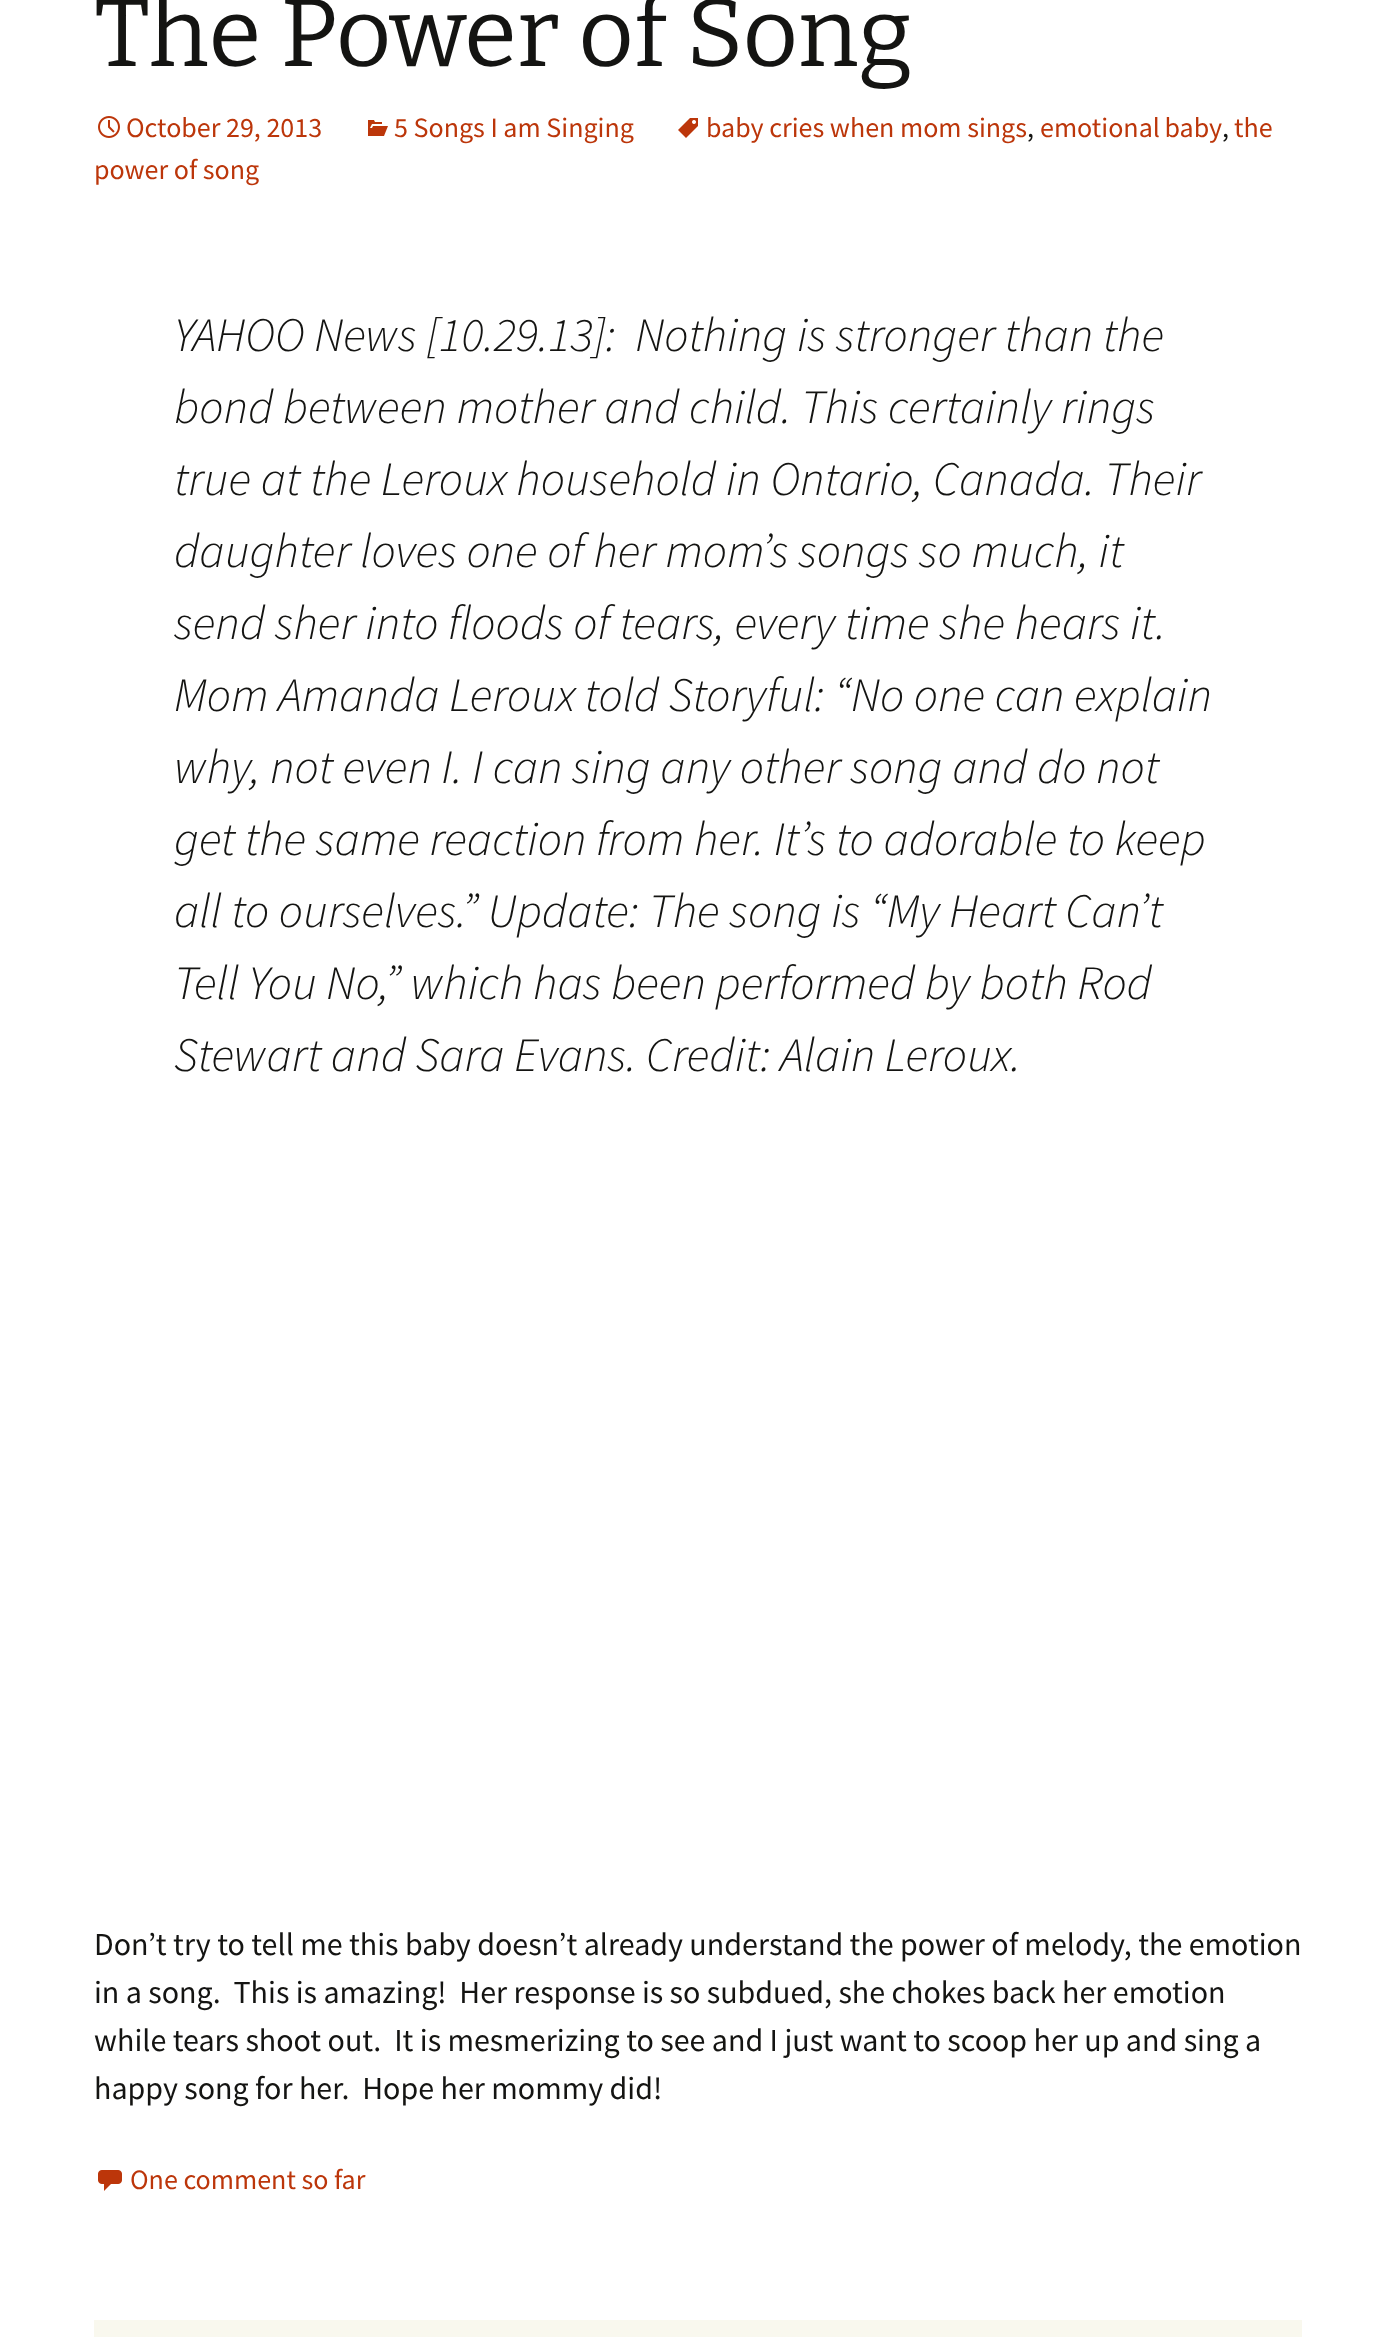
(async () => {
const canvas = document.querySelector("canvas")
canvas.width = 1395
canvas.height = 2337
const c = canvas.getContext("2d")
c.miterLimit = 4
c.fontKerning = "normal"
function T(s,x,y){c.fillText(s,x,y)}
function R(x,y,w,h){c.fillRect(x,y,w,h)}
async function I(src,x,y,w,h){const img=new Image();img.src=src;await img.decode();c.drawImage(img,x,y,w,h)}
c.fillStyle="#fff"
R(0,0,1395,2337)
c.font="96px Bitter"
c.fillStyle="#141412"
T("The Power of Song",94,66)
await I("1.png",678,118,20,20)
c.font="28px Source Sans Pro"
c.fillStyle="#bc360a"
T("baby cries when mom sings",706,137)
c.fillStyle="#141412"
T(",",1027,137)
c.wordSpacing="-1px"
c.fillStyle="#bc360a"
T("emotional baby",1040,137)
c.wordSpacing="0px"
c.fillStyle="#141412"
T(",",1222,137)
c.fillStyle="#bc360a"
T("the",1234,137)
T("power of song",94,179)
await I("2.png",98,116,22,22)
T("October 29, 2013",126,137)
await I("3.png",368,120,20,16)
T("5 Songs I am Singing",394,137)
c.font="italic 300 48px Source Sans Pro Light"
c.fillStyle="#141412"
T("YAHOO News [10.29.13]:  Nothing is stronger than the",174,351)
T("bond between mother and child. This certainly rings",174,423)
T("true at the Leroux household in Ontario, Canada. Their",174,495)
T("daughter loves one of her mom’s songs so much, it",174,567)
T("send sher into floods of tears, every time she hears it.",174,639)
T("Mom Amanda Leroux told Storyful: “No one can explain",174,711)
T("why, not even I. I can sing any other song and do not",174,783)
T("get the same reaction from her. It’s to adorable to keep",174,855)
T("all to ourselves.” Update: The song is “My Heart Can’t",174,927)
T("Tell You No,” which has been performed by both Rod",174,999)
T("Stewart and Sara Evans. Credit: Alain Leroux.",174,1071)
c.font="32px Source Sans Pro"
T("Don’t try to tell me this baby doesn’t already understand the power of melody, the emotion",94,1955)
T("in a song.  This is amazing!  Her response is so subdued, she chokes back her emotion",94,2003)
T("while tears shoot out.  It is mesmerizing to see and I just want to scoop her up and sing a",94,2051)
T("happy song for her.  Hope her mommy did!",94,2099)
await I("4.png",98,2170,24,21)
c.font="28px Source Sans Pro"
c.fillStyle="#bc360a"
T("One comment so far",130,2189)
c.fillStyle="#f9f8ee"
R(94,2320,1208,17)
})()
